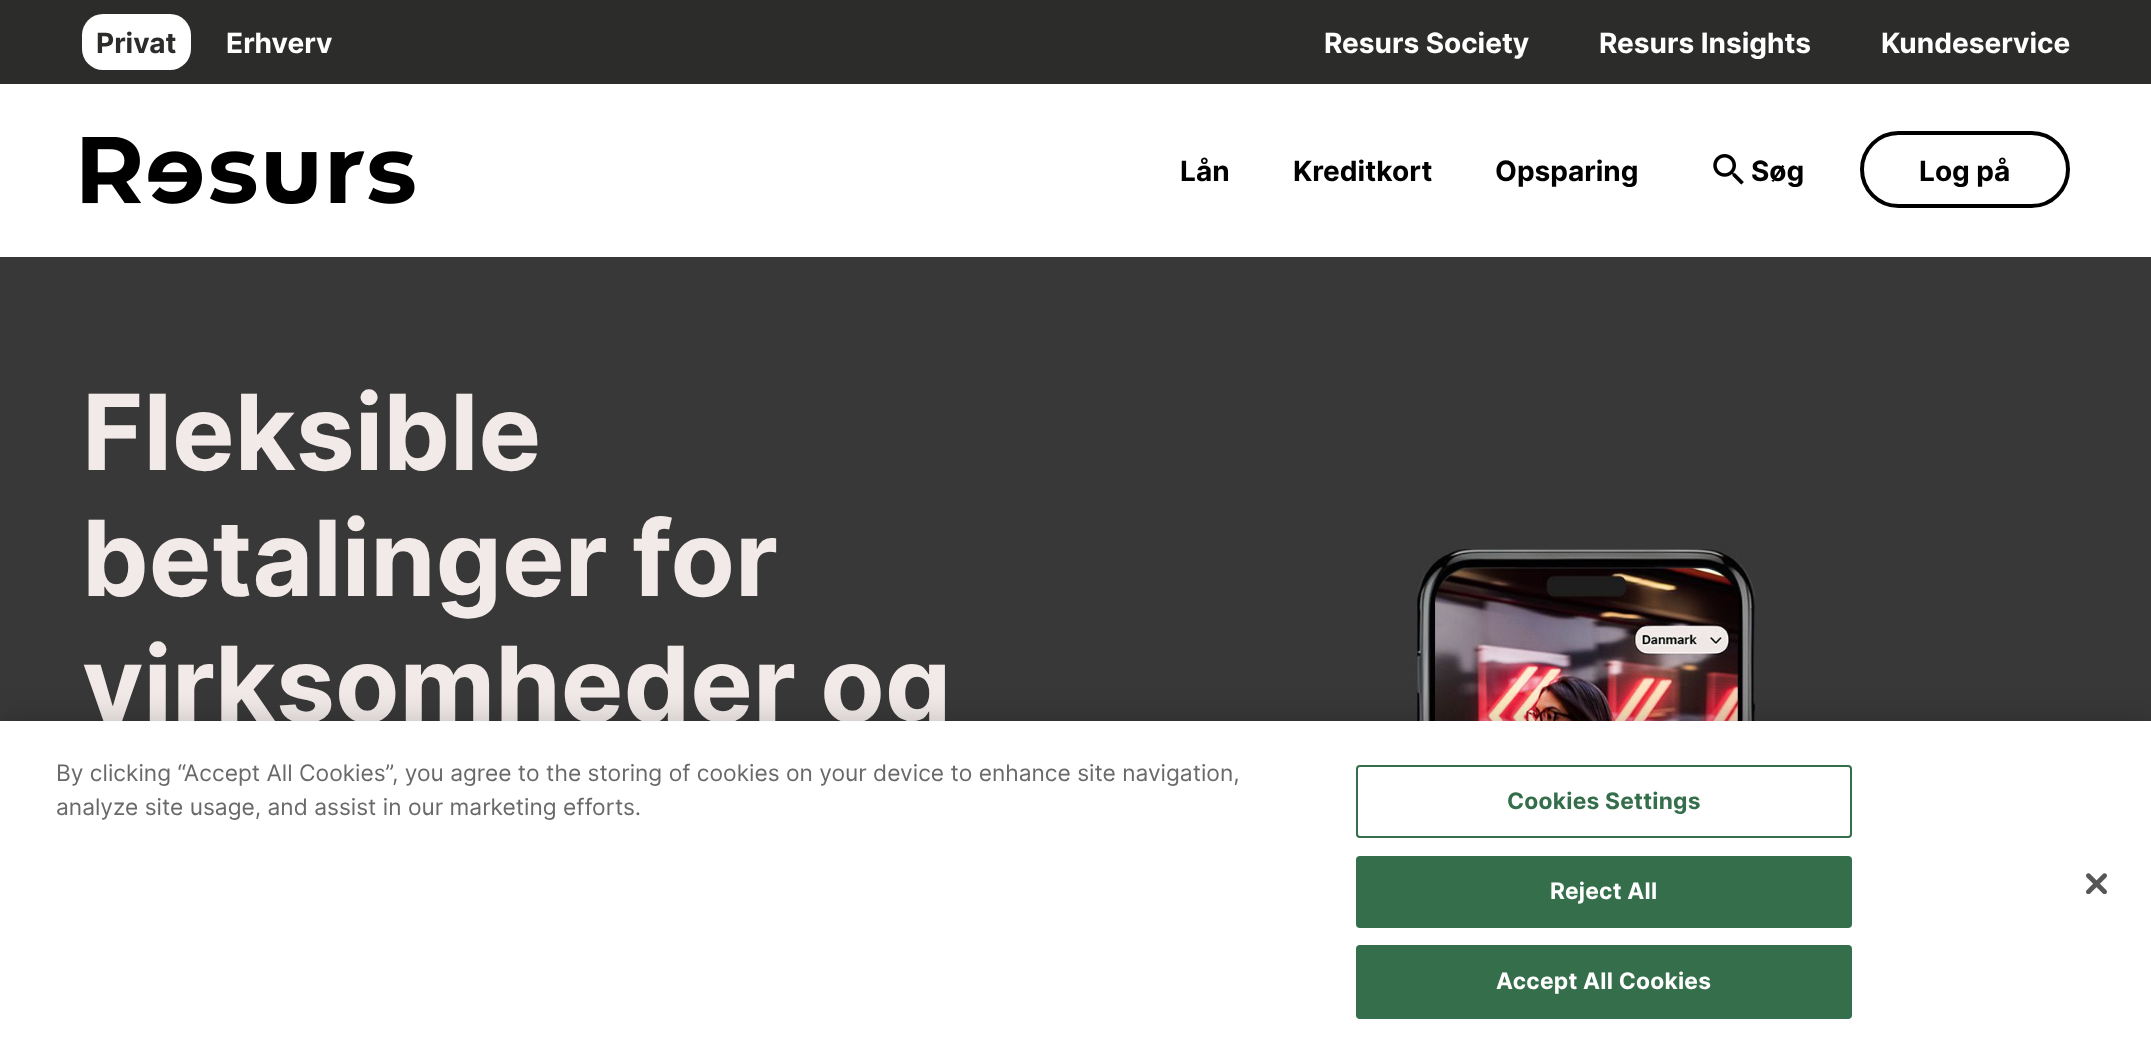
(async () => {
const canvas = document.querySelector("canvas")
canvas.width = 2151
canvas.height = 1053
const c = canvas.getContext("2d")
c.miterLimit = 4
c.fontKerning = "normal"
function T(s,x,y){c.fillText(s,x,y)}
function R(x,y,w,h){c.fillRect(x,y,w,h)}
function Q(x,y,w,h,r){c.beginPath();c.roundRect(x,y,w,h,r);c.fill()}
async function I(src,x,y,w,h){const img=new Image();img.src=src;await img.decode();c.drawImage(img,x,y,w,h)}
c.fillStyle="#fff"
R(0,0,2151,1053)
c.fillStyle="#2c2c2b"
R(0,0,2151,84)
c.fillStyle="#fff"
Q(82,14,109,56,21)
c.font="bold 28px Inter"
c.fillStyle="#2c2c2b"
T("Privat",96,53)
c.fillStyle="#fff"
T("Erhverv",226,53)
T("Resurs Society",1324,53)
T("Resurs Insights",1599,53)
T("Kundeservice",1881,53)
await I("1.png",82,137,333,67)
c.fillStyle="#000"
T("Lån",1180,181)
T("Kreditkort",1293,181)
T("Opsparing",1495,181)
await I("2.png",1713,154,31,31)
T("Søg",1751,181)
c.beginPath()
c.roundRect(1862,133,206,73,36.5)
c.strokeStyle="#000"
c.lineWidth=4
c.stroke()
T("Log på",1919,181)
c.fillStyle="#393838"
R(0,257,2151,464)
c.font="bold 105px Inter"
c.fillStyle="#f1eae8"
T("Fleksible",82,470)
T("betalinger for",82,596)
T("virksomheder og",82,722)
await I("3.png",1413,549,342,172)
c.fillStyle="#00000033"
c.filter="blur(16px)"
c.beginPath()
c.rect(0,721,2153,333)
c.fill()
c.filter="none"
c.fillStyle="#fff"
R(0,721,2151,332)
c.font="22.75px Inter"
c.fillStyle="#696969"
T("By clicking “Accept All Cookies”, you agree to the storing of cookies on your device to enhance site navigation,",56,781)
T("analyze site usage, and assist in our marketing efforts.",56,815)
c.beginPath()
c.roundRect(1357,766,494,71,3)
c.strokeStyle="#346e4a"
c.lineWidth=2
c.stroke()
c.letterSpacing="0.25px"
c.font="bold 22.75px Inter"
c.fillStyle="#346e4a"
T("Cookies Settings",1507,809)
c.beginPath()
c.roundRect(1357,857,494,70,3)
c.fill()
c.stroke()
c.fillStyle="#fff"
T("Reject All",1550,899)
c.fillStyle="#346e4a"
c.beginPath()
c.roundRect(1357,946,494,72,3)
c.fill()
c.stroke()
c.fillStyle="#fff"
T("Accept All Cookies",1496,989)
await I("4.png",2086,873,21,21)
})()
